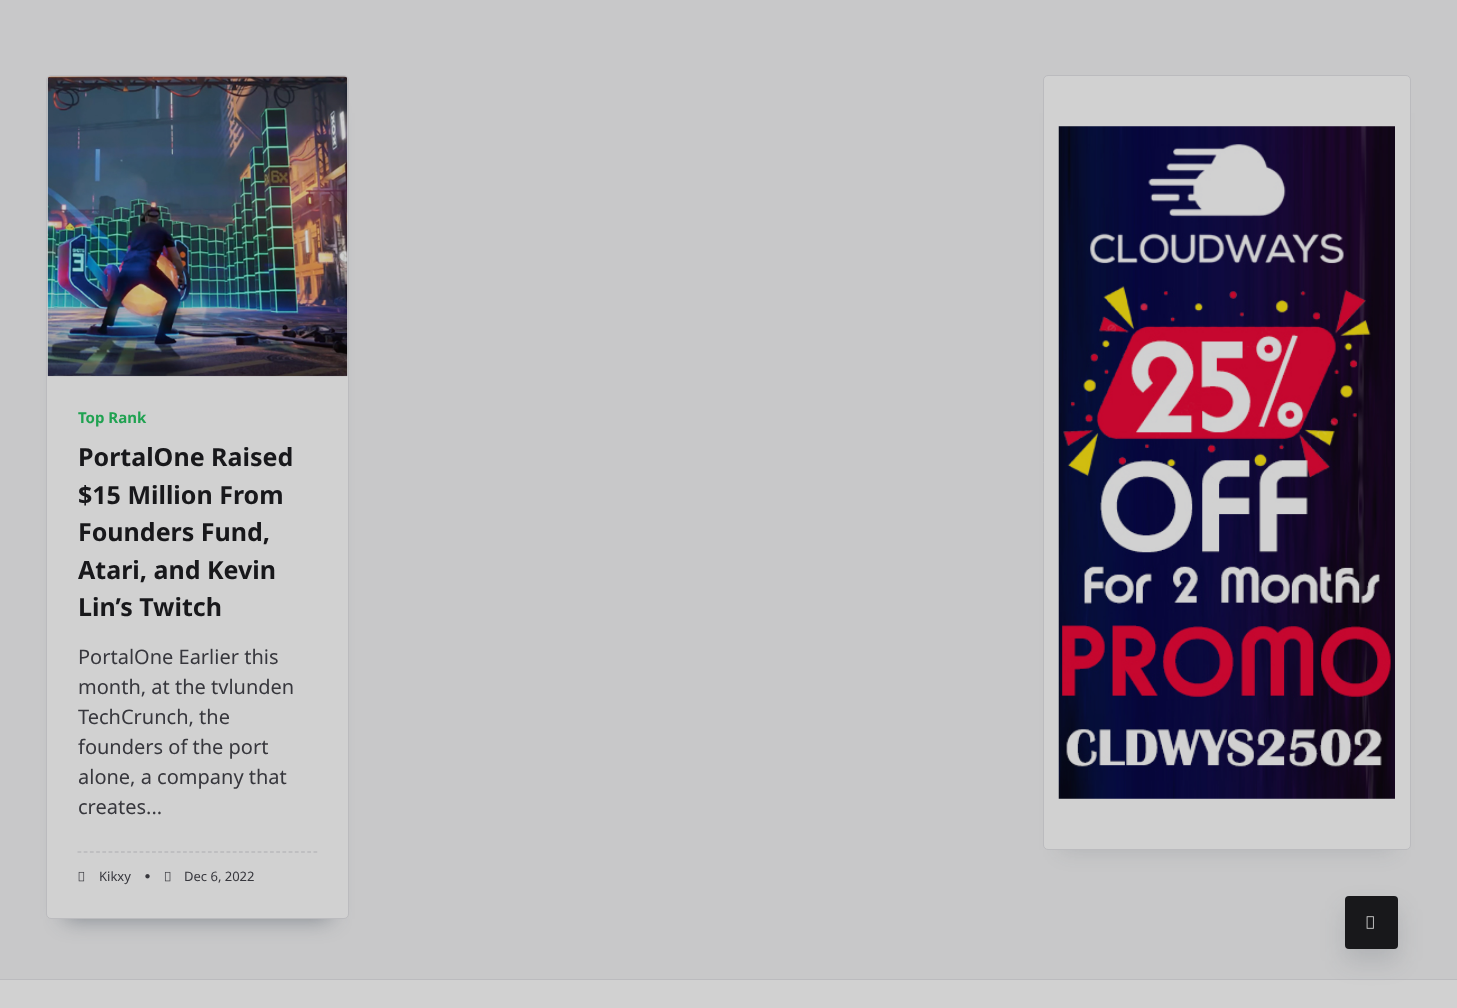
(async () => {
const canvas = document.querySelector("canvas")
canvas.width = 1457
canvas.height = 1008
const c = canvas.getContext("2d")
c.miterLimit = 4
c.fontKerning = "normal"
function T(s,x,y){c.fillText(s,x,y)}
function R(x,y,w,h){c.fillRect(x,y,w,h)}
function Q(x,y,w,h,r){c.beginPath();c.roundRect(x,y,w,h,r);c.fill()}
async function I(src,x,y,w,h){const img=new Image();img.src=src;await img.decode();c.drawImage(img,x,y,w,h)}
let path
c.fillStyle="#c8c8c9"
R(0,0,1457,1008)
c.fillStyle="#28364573"
c.filter="blur(11px)"
c.beginPath()
c.rect(65,113,265,806)
c.fill()
c.filter="none"
c.fillStyle="#d1d1d1"
c.beginPath()
c.roundRect(46.5,75.5,302,843,4.5)
c.fill()
c.strokeStyle="#bbbbbe"
c.stroke()
await I("1.png",47,76,301,301)
c.font="bold 15px Noto Sans"
c.fillStyle="#20a251"
T("Top Rank",78,423)
c.font="bold 25px Noto Sans"
c.fillStyle="#18181b"
T("PortalOne Raised",78,466)
T("$15 Million From",78,504)
T("Founders Fund,",78,541)
T("Atari, and Kevin",78,579)
T("Lin’s Twitch",78,616)
c.font="20px Noto Sans"
c.fillStyle="#37373d"
T("PortalOne Earlier this",78,664)
T("month, at the tvlunden",78,694)
T("TechCrunch, the",78,724)
T("founders of the port",78,754)
T("alone, a company that",78,784)
T("creates...",78,814)
path = new Path2D("M77.5 852h240")
c.strokeStyle="#aeaeb2"
c.lineWidth=1.2
c.setLineDash([3.75,2.46])
c.stroke(path)
await I("2.png",78,871,7,11)
c.font="13px Noto Sans"
T("Kikxy",99,881)
await I("3.png",145,874,5,5)
await I("4.png",164,871,7,11)
T("Dec 6, 2022",184,881)
c.fillStyle="#28364526"
c.filter="blur(11px)"
c.beginPath()
c.rect(1061,113,332,737)
c.fill()
c.filter="none"
c.fillStyle="#d1d1d1"
c.beginPath()
c.roundRect(1043.5,75.5,367,774,4.5)
c.fill()
c.strokeStyle="#bbbbbe"
c.lineWidth=1
c.setLineDash([])
c.stroke()
await I("5.png",1058,126,337,673)
R(0,980,1457,28)
c.fillStyle="#bbbbbe"
R(0,979,1457,1)
c.fillStyle="#28364526"
c.filter="blur(12.5px)"
c.beginPath()
c.roundRect(1345,909,53,52,4)
c.fill()
c.filter="none"
c.fillStyle="#18181b"
Q(1345,896,53,53,4)
await I("6.png",1366,916,8,13)
})()
